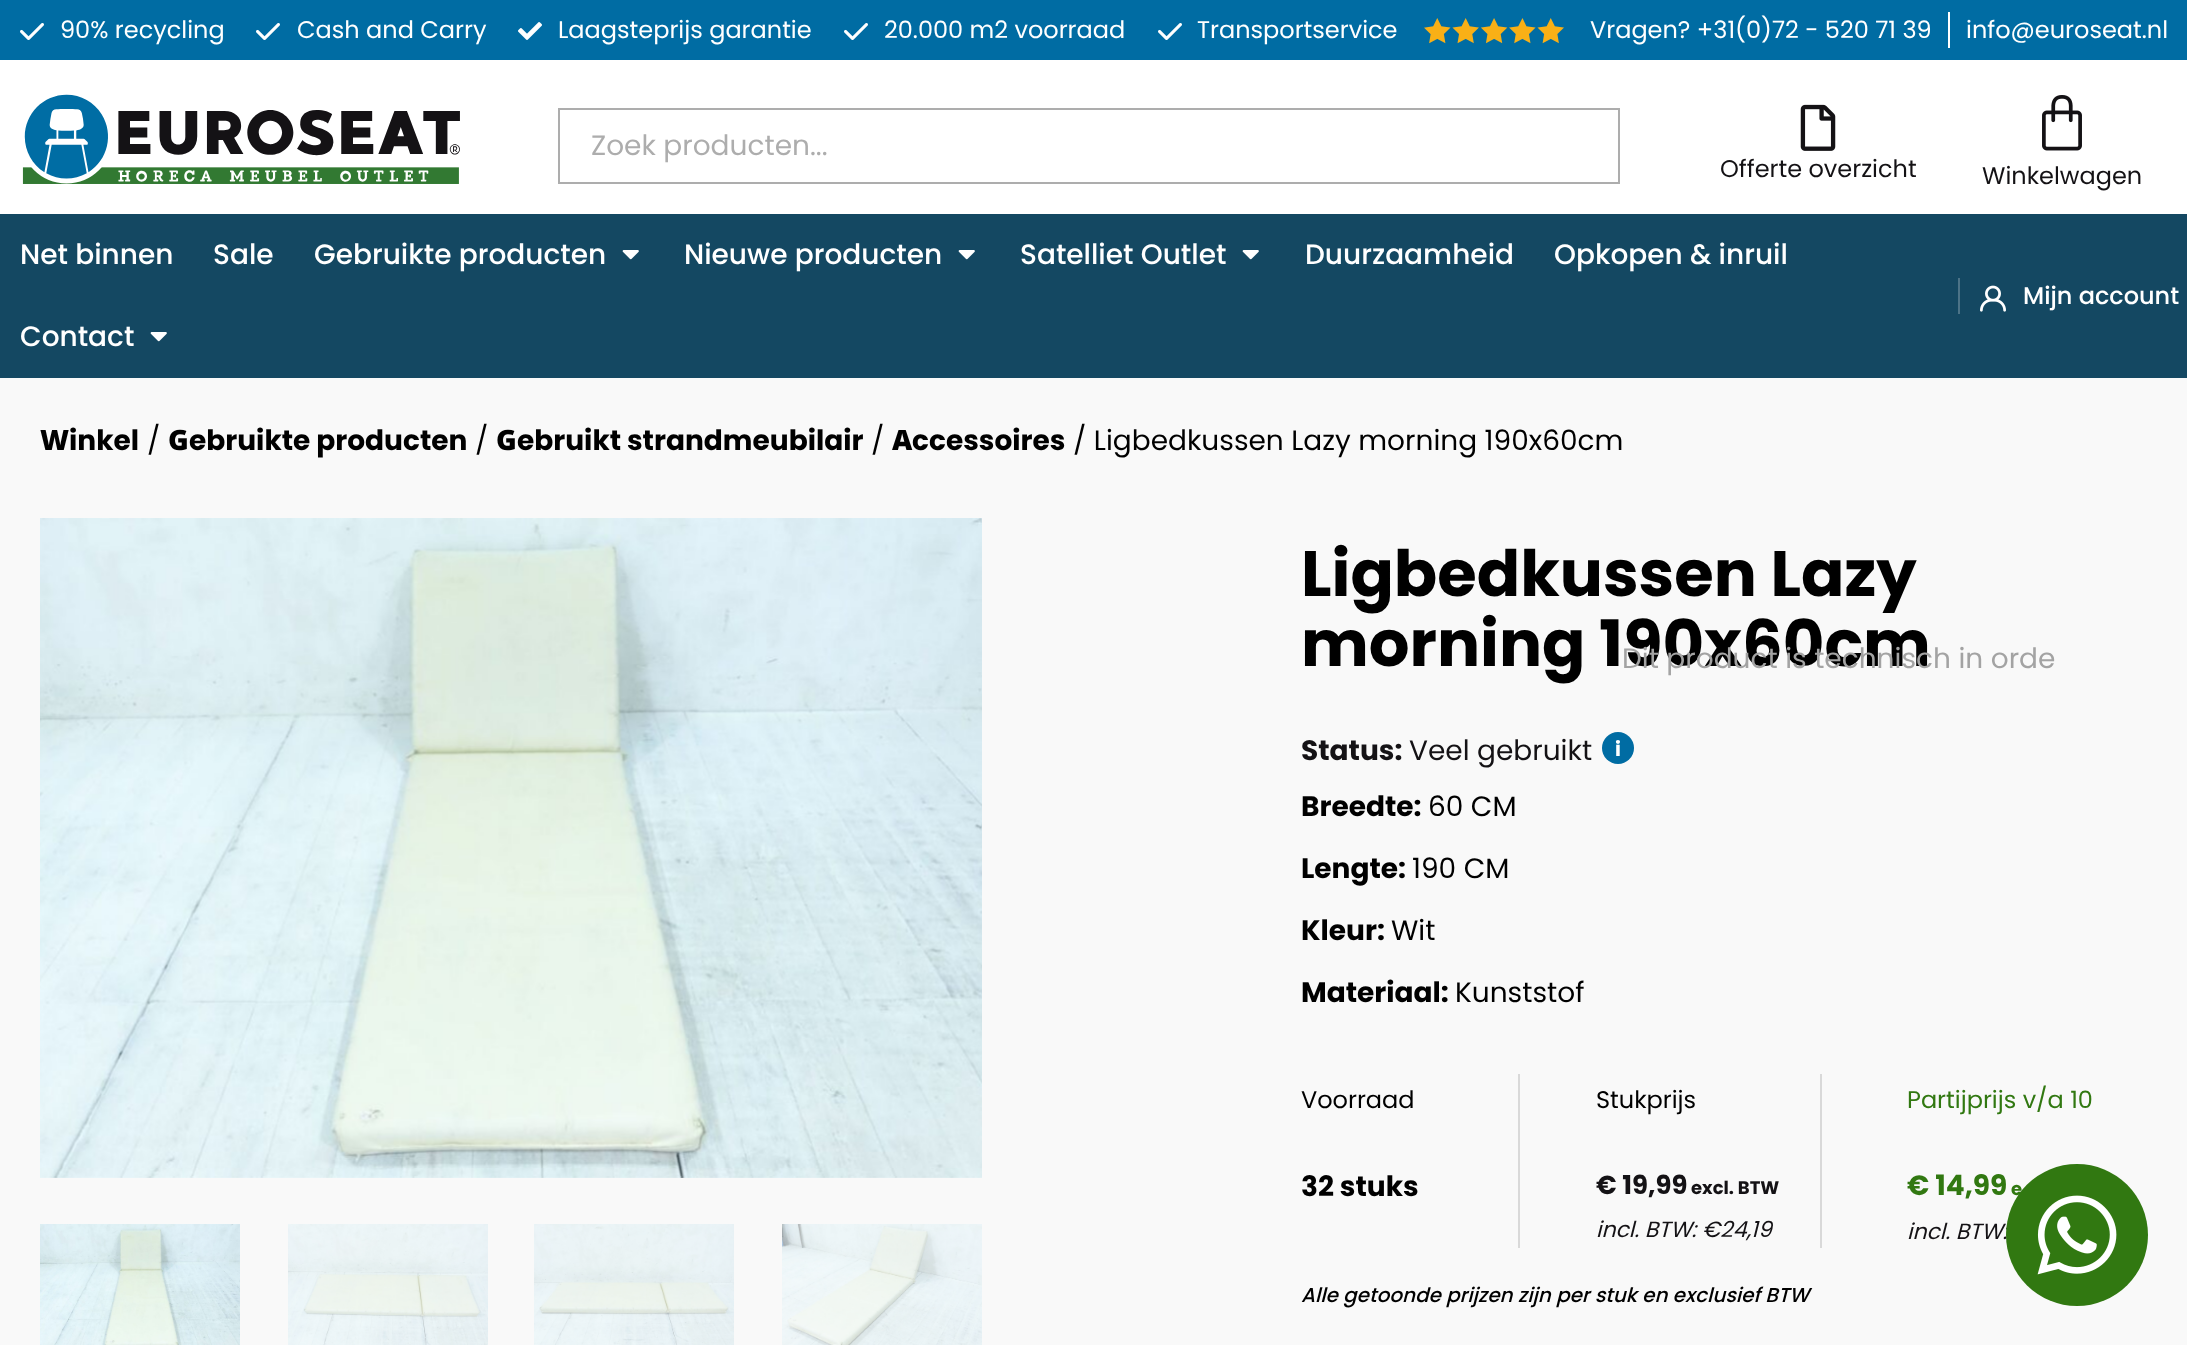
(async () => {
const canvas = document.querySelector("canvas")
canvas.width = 2187
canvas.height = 1345
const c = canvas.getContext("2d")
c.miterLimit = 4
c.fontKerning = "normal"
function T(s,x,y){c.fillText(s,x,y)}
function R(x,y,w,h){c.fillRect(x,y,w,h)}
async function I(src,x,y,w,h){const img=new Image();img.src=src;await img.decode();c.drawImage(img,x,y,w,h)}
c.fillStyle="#f9f9f9"
R(0,0,2187,1345)
c.fillStyle="#006ca3"
R(0,0,2187,60)
await I("1.png",20,23,24,17)
c.font="24px Poppins"
c.fillStyle="#fff"
T("90% recycling",60,38)
await I("1.png",256,23,24,17)
T("Cash and Carry",297,38)
await I("2.png",518,22,24,18)
T("Laagsteprijs garantie",558,38)
await I("1.png",844,23,24,17)
T("20.000 m2 voorraad",884,38)
await I("1.png",1158,23,24,17)
T("Transportservice",1197,38)
await I("3.png",1424,18,140,26)
T("Vragen? +31(0)72 - 520 71 39",1590,38)
R(1948,12,2,36)
T("info@euroseat.nl",1966,38)
R(0,60,2187,154)
await I("4.png",22,94,438,90)
c.strokeStyle="#adadad"
c.lineWidth=2
c.strokeRect(559,109,1060,74)
c.font="28px Poppins"
c.fillStyle="#adadad"
T("Zoek producten...",591,155)
await I("5.png",1800,104,36,47)
c.font="24px Poppins"
c.fillStyle="#141215"
T("Offerte overzicht",1720,177)
await I("6.png",2042,95,40,56)
T("Winkelwagen",1982,184)
c.fillStyle="#144862"
R(0,214,2187,164)
c.font="500 28px Poppins"
c.fillStyle="#fff"
T("Net binnen",20,264)
T("Sale",213,264)
T("Gebruikte producten",314,264)
await I("7.png",622,250,17,10)
T("Nieuwe producten",684,264)
await I("7.png",958,250,17,10)
T("Satelliet Outlet",1020,264)
await I("7.png",1242,250,17,10)
T("Duurzaamheid",1305,264)
T("Opkopen & inruil",1554,264)
T("Contact",20,346)
await I("7.png",150,332,17,10)
c.fillStyle="#4c7387"
R(1958,278,2,36)
await I("8.png",1980,285,26,27)
c.font="500 24px Poppins"
c.fillStyle="#fff"
T("Mijn account",2023,304)
c.font="900 28px Noto Sans"
c.fillStyle="#000"
T("W",40,450)
c.font="bold 28px Poppins"
T("inkel",69,450)
c.font="28px Poppins"
T("/",147,450)
c.font="900 28px Noto Sans"
T("G",168,450)
c.font="bold 28px Poppins"
T("ebruikte producten",189,450)
c.font="28px Poppins"
T("/",475,450)
c.font="900 28px Noto Sans"
T("G",496,450)
c.font="bold 28px Poppins"
T("ebruikt strandmeubilair",517,450)
c.font="28px Poppins"
T("/",871,450)
c.font="900 28px Noto Sans"
T("A",892,450)
c.font="bold 28px Poppins"
T("ccessoires",912,450)
c.font="28px Poppins"
T("/ Ligbedkussen Lazy morning 190x60cm",1073,450)
await I("9.png",40,518,942,660)
await I("10.png",40,1224,200,121)
await I("11.png",288,1224,200,121)
await I("12.png",534,1224,200,121)
await I("13.png",782,1224,200,121)
c.font="bold 64px Poppins"
T("Ligbedkussen Lazy",1301,596)
T("morning 190x60cm",1301,666)
c.font="bold 28px Poppins"
c.fillStyle="#141215"
T("Status:",1301,760)
c.font="28px Poppins"
c.fillStyle="#a3a3a3"
T("Dit product is technisch in orde",1622,668)
c.fillStyle="#141215"
T("Veel gebruikt",1409,760)
c.fillStyle="#006ca3"
c.beginPath()
c.arc(1618,748,16,0,7)
c.fill()
c.font="bold 20px Poppins"
c.fillStyle="#fff"
T("i",1615,756)
c.font="bold 28px Poppins"
c.fillStyle="#000"
T("Breedte:",1301,816)
c.font="28px Poppins"
T("60 CM",1428,816)
c.font="bold 28px Poppins"
T("Lengte:",1301,878)
c.font="28px Poppins"
T("190 CM",1412,878)
c.font="bold 28px Poppins"
T("Kleur:",1301,940)
c.font="28px Poppins"
T("Wit",1391,940)
c.font="bold 28px Poppins"
T("Materiaal:",1301,1002)
c.font="28px Poppins"
T("Kunststof",1455,1002)
c.font="24px Poppins"
T("Voorraad",1301,1108)
c.font="bold 28px Poppins"
T("32 stuks",1301,1196)
c.fillStyle="#d9d9d9"
R(1820,1074,2,174)
R(1518,1074,2,174)
c.font="24px Poppins"
c.fillStyle="#000"
T("Stukprijs",1596,1108)
c.font="bold 26px Poppins"
c.fillStyle="#141215"
T("€ 19,99",1596,1194)
c.font="bold 18px Poppins"
T("excl. BTW",1691,1194)
c.font="italic 22px Poppins"
T("incl. BTW: €24,19",1596,1237)
c.font="24px Poppins"
c.fillStyle="#317811"
T("Partijprijs v/a 10",1907,1108)
c.font="bold 28px Poppins"
T("€ 14,99",1907,1195)
c.font="bold 18px Poppins"
T("e",2011,1195)
c.font="italic 22px Poppins"
c.fillStyle="#141215"
T("incl. BTW:",1907,1239)
c.font="italic 500 20px Poppins"
c.fillStyle="#000"
T("Alle getoonde prijzen zijn per stuk en exclusief BTW",1301,1302)
c.fillStyle="#317811"
c.beginPath()
c.arc(2077,1235,71,0,7)
c.fill()
await I("14.png",2037,1195,80,80)
})()
